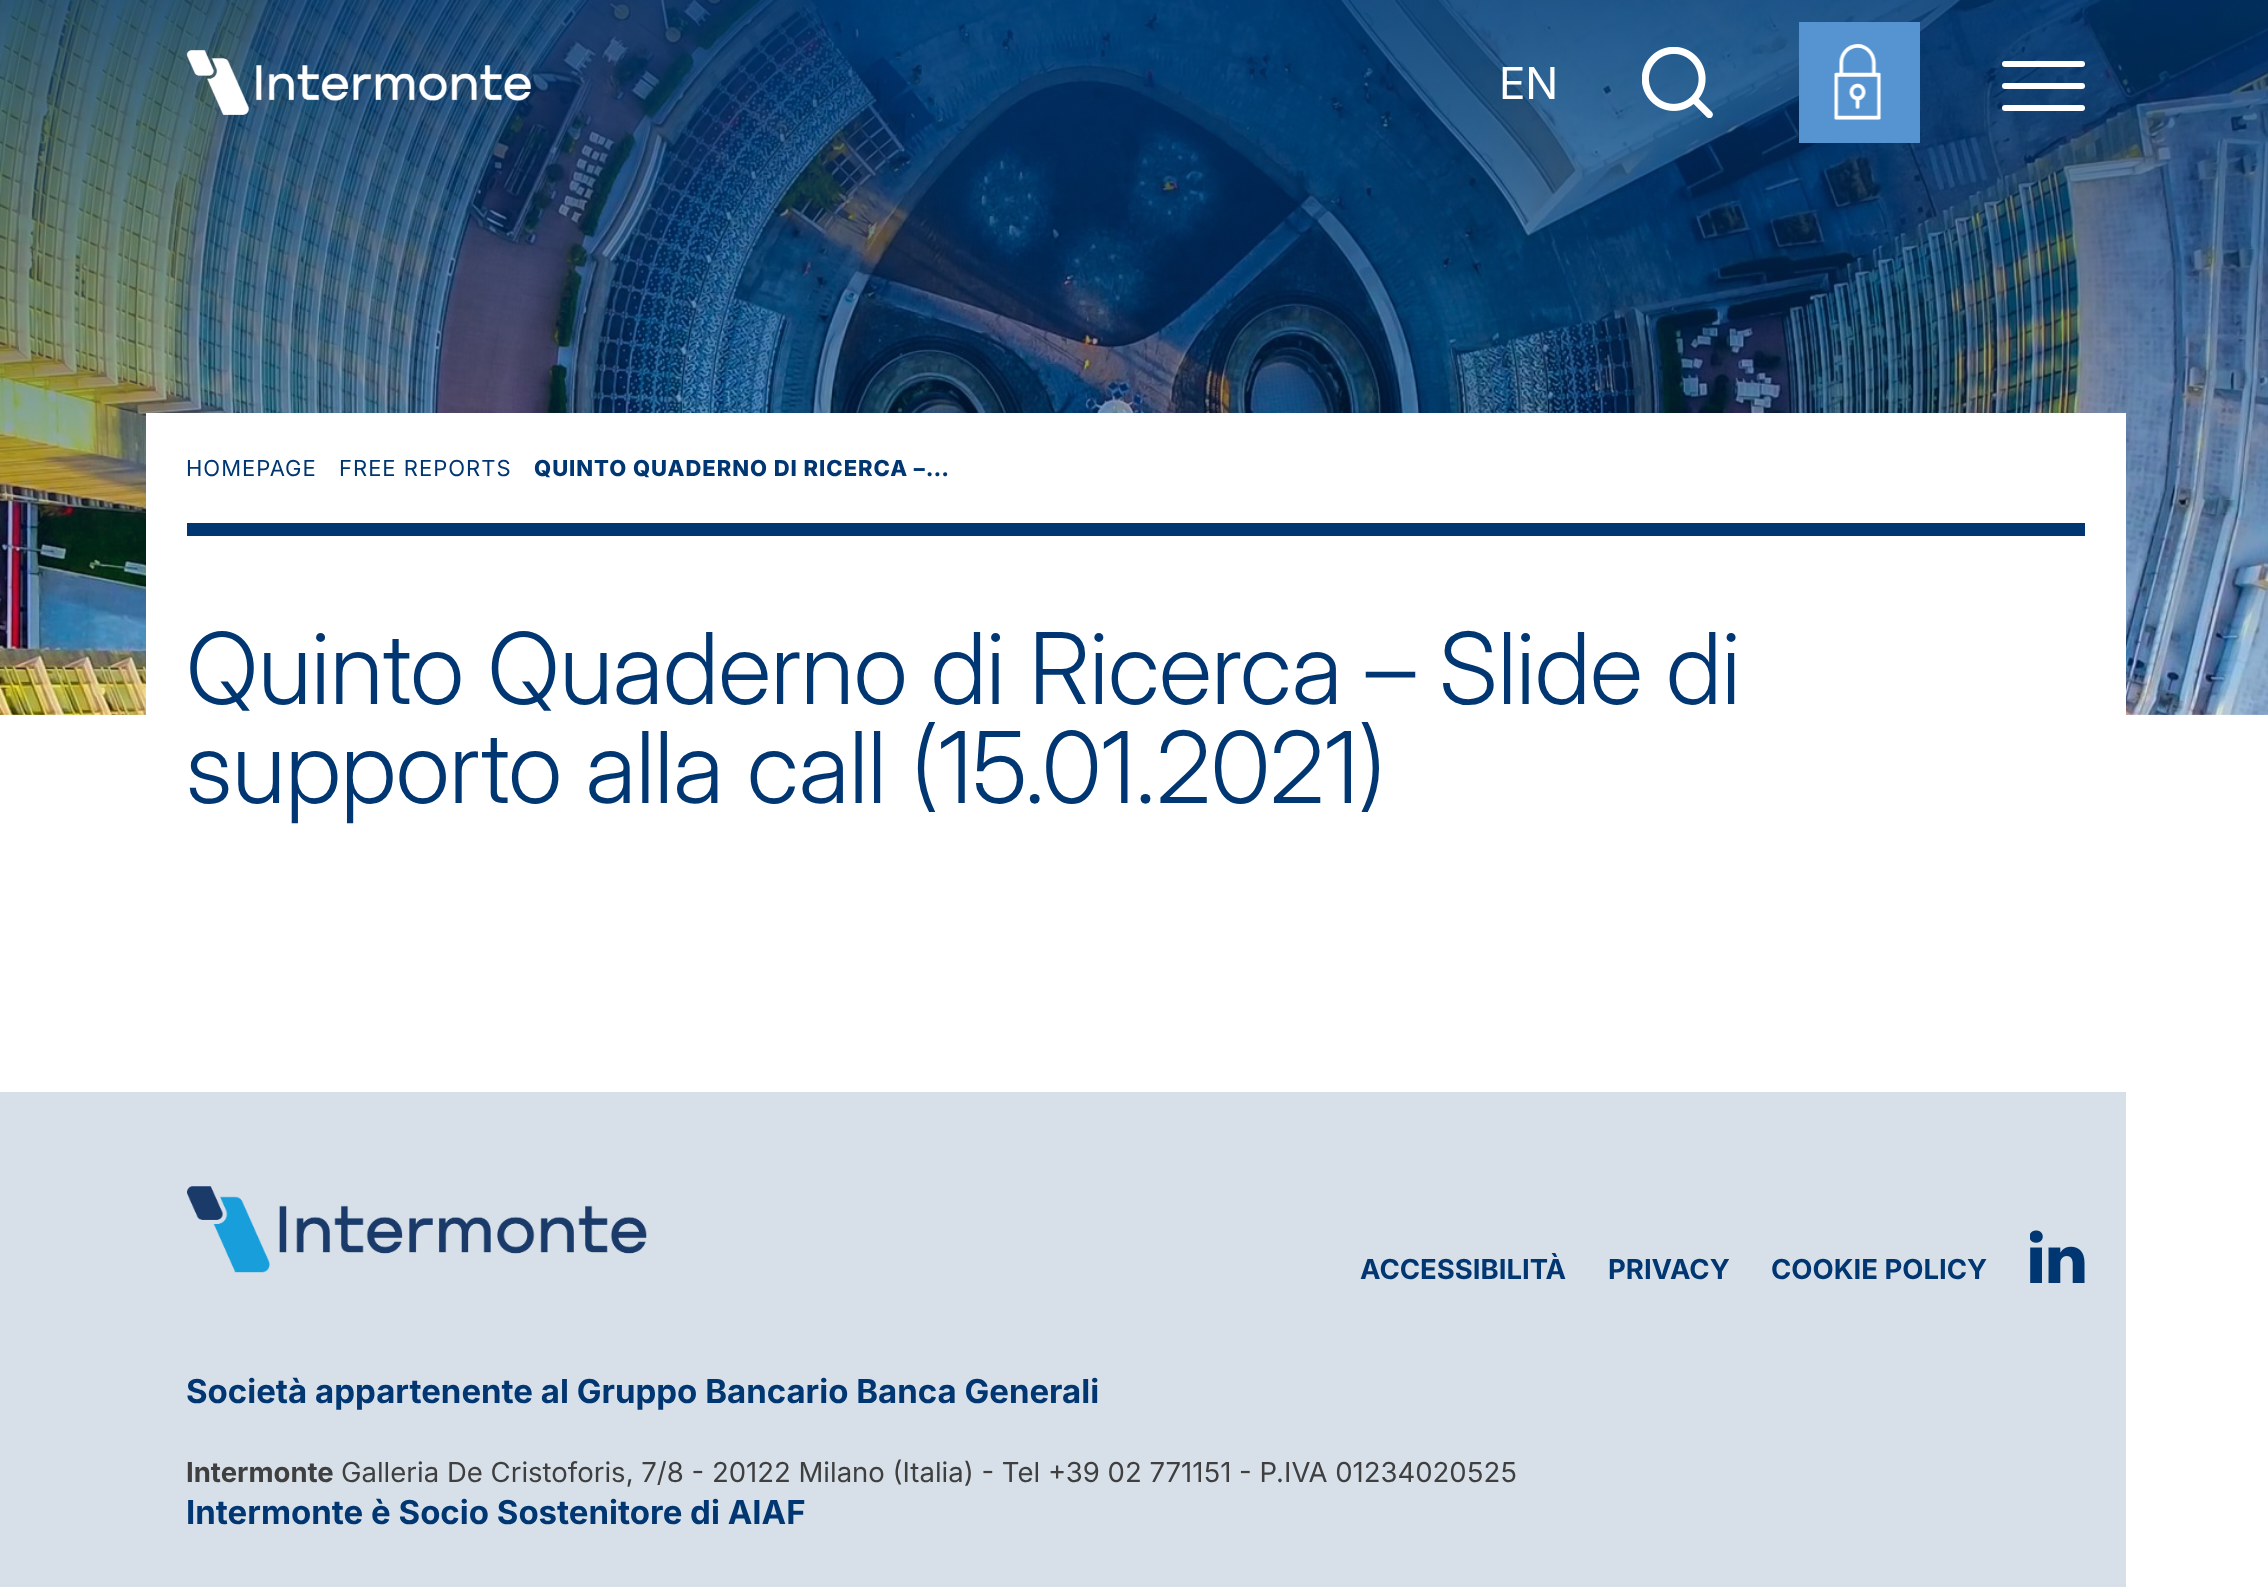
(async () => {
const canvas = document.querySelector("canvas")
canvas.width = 2268
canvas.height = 1587
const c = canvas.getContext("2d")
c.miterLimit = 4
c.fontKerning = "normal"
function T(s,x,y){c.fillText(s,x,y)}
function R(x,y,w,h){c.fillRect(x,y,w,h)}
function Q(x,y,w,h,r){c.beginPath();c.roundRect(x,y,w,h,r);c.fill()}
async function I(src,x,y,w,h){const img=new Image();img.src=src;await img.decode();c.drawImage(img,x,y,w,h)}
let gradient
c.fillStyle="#fff"
R(0,0,2268,1587)
await I("1.png",0,0,2268,715)
gradient = c.createLinearGradient(1134,0,1134,715)
gradient.addColorStop(0,"#003671cc")
gradient.addColorStop(1,"#00367100")
c.fillStyle = gradient
R(0,0,2268,696)
await I("2.png",186,50,345,65)
c.font="44px 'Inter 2'"
c.fillStyle="#fff"
T("EN",1499,99)
await I("3.png",1642,47,71,71)
Q(2002,83,83,6,3)
Q(2002,61,83,6,3)
Q(2002,105,83,6,3)
c.fillStyle="#5693d1"
R(1799,22,121,121)
await I("4.png",1834,44,48,76)
c.fillStyle="#fff"
R(146,413,1980,302)
c.letterSpacing="1px"
c.font="22px Inter"
c.fillStyle="#003671"
T("HOMEPAGE",186,476)
T("FREE REPORTS",339,476)
c.letterSpacing="0.95px"
c.font="800 22px Inter"
T("QUINTO QUADERNO DI RICERCA –…",534,476)
R(187,523,1898,13)
c.letterSpacing="0px"
c.font="300 99px Inter"
T("Quinto Quaderno di Ricerca – Slide di",186,704)
T("supporto alla call (15.01.2021)",186,803)
c.fillStyle="#d7e0e9"
R(0,1092,2126,495)
await I("5.png",187,1186,460,87)
c.font="bold 27.5px Inter"
c.fillStyle="#003671"
T("ACCESSIBILITÀ",1360,1279)
T("PRIVACY",1608,1279)
T("COOKIE POLICY",1771,1279)
await I("6.png",2030,1230,55,53)
c.font="bold 33px Inter"
T("Società appartenente al Gruppo Bancario Banca Generali",186,1403)
c.font="bold 27.5px Inter"
c.fillStyle="#3f3f3f"
T("Intermonte",186,1482)
c.font="27.5px Inter"
T("Galleria De Cristoforis, 7/8 - 20122 Milano (Italia) - Tel +39 02 771151 - P.IVA 01234020525",341,1482)
c.font="bold 33px Inter"
c.fillStyle="#003671"
T("Intermonte è Socio Sostenitore di AIAF",186,1524)
})()
